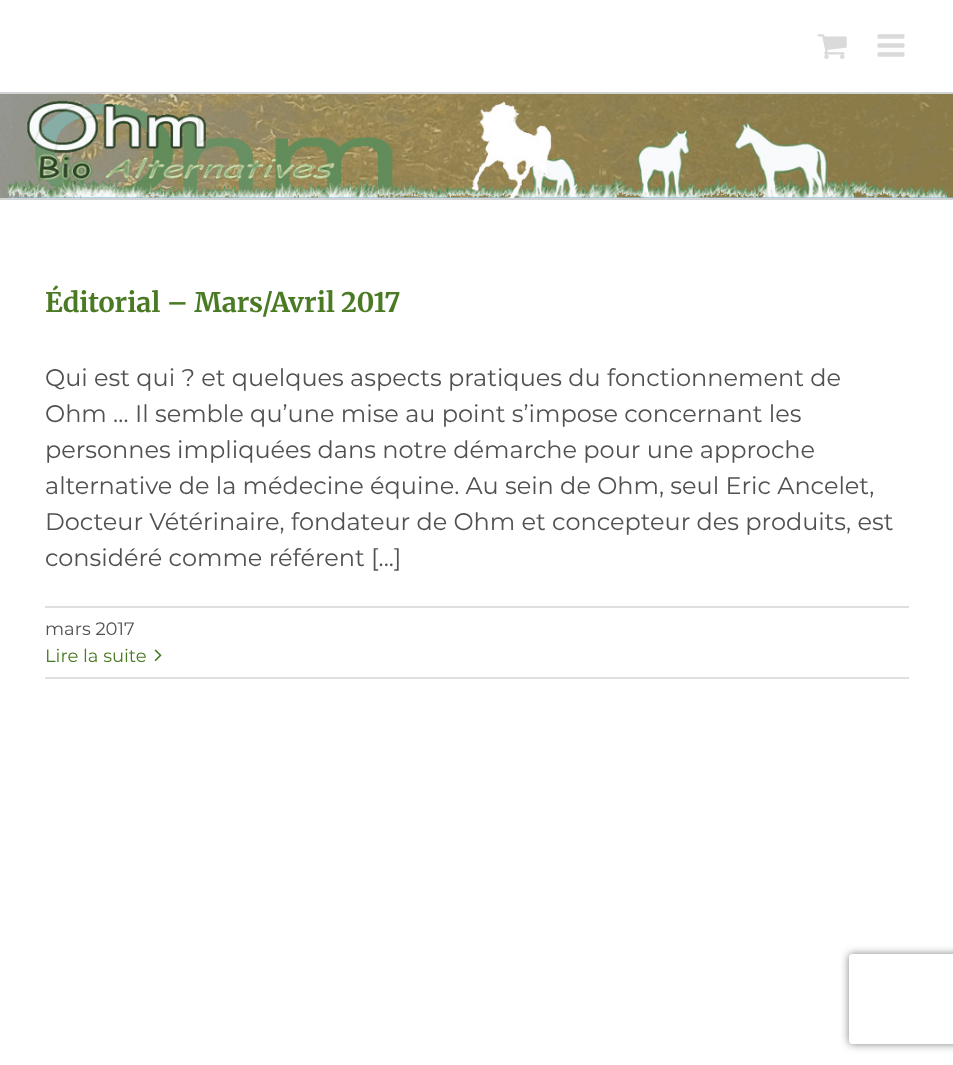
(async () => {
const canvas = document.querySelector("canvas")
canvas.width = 953
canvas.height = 1065
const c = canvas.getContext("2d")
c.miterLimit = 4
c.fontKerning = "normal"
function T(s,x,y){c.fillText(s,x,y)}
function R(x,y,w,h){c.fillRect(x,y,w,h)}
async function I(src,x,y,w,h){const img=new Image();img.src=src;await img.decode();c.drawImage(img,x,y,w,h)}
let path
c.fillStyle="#fff"
R(0,0,953,1065)
await I("1.png",817,34,30,25)
await I("2.png",877,34,28,23)
await I("3.png",0,94,953,104)
c.fillStyle="#d2d3d4"
R(0,92,953,2)
R(0,198,953,2)
c.font="300 27px Merriweather"
c.fillStyle="#4a7a23"
T("Éditorial – Mars/Avril 2017",45,312)
c.font="24px Montserrat"
c.fillStyle="#515151"
T("Qui est qui ? et quelques aspects pratiques du fonctionnement de",45,386)
T("Ohm … Il semble qu’une mise au point s’impose concernant les",45,422)
T("personnes impliquées dans notre démarche pour une approche",45,458)
T("alternative de la médecine équine. Au sein de Ohm, seul Eric Ancelet,",45,494)
T("Docteur Vétérinaire, fondateur de Ohm et concepteur des produits, est",45,530)
T("considéré comme référent [...]",45,566)
c.fillStyle="#e0dede"
R(45,606,864,2)
R(45,677,864,2)
c.font="18px Montserrat"
c.fillStyle="#515151"
T("mars 2017",45,635)
c.fillStyle="#4a7a23"
T("Lire la suite",45,662)
await I("4.png",154,649,8,13)
c.save()
path = new Path2D("M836 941h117v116h-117zm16 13h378c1.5 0 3 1.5 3 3v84c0 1.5-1.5 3-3 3h-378c-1.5 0-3-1.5-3-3v-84c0-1.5 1.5-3 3-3z")
c.clip(path,"evenodd")
c.fillStyle="#808080"
c.filter="blur(4px)"
c.beginPath()
c.roundRect(849,954,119,90,3)
c.fill()
c.filter="none"
c.restore()
})()
